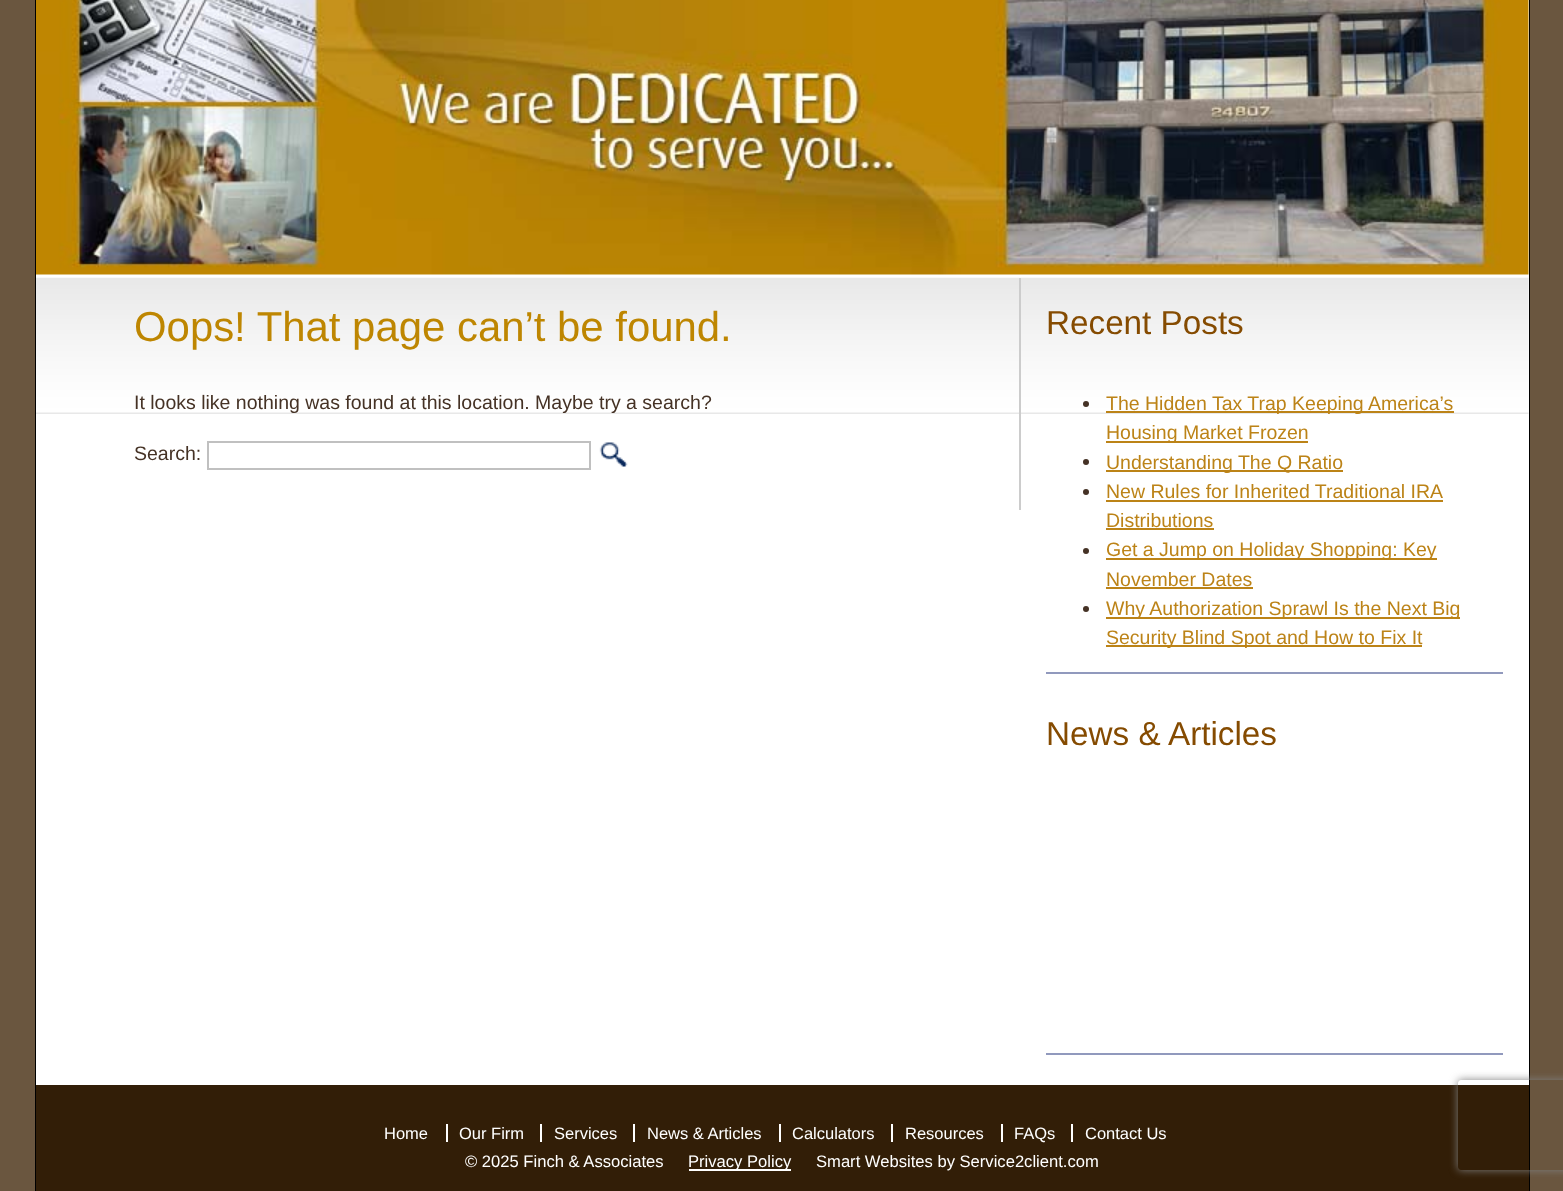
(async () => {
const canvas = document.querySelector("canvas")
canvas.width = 1563
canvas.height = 1191
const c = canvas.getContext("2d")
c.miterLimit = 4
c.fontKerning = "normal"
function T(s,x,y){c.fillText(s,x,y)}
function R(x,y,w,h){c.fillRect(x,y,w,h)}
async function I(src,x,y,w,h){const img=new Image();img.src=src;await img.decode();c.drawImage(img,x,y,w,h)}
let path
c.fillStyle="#6a563f"
R(0,0,1563,1191)
c.strokeStyle="#000"
c.lineWidth=2
c.strokeRect(36,-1,1493,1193)
c.fillStyle="#fff"
R(36,0,1493,1085)
await I("1.png",36,0,1493,275)
await I("2.png",36,277,1493,137)
c.fillStyle="#ccc"
R(1019,278,2,232)
c.font="41.9px Liberation Sans"
c.fillStyle="#be8601"
T("Oops! That page can’t be found.",134,341)
c.font="19.5px Liberation Sans"
c.fillStyle="#453225"
T("It looks like nothing was found at this location. Maybe try a search?",134,409)
T("Search:",134,460)
c.strokeStyle="#c0c0c0"
c.strokeRect(208,442,382,27)
await I("3.png",599,442,29,25)
c.font="33.25px Liberation Sans"
c.fillStyle="#854b01"
T("Recent Posts",1046,334)
c.fillStyle="#453225"
c.beginPath()
c.arc(1086,404,3,0,7)
c.fill()
c.fillStyle="#bc8317"
R(1106,411,348,2)
c.font="19.5px Liberation Sans"
T("The Hidden Tax Trap Keeping America’s",1106,410)
R(1106,441,202,2)
T("Housing Market Frozen",1106,439)
c.fillStyle="#453225"
c.beginPath()
c.arc(1086,462,3,0,7)
c.fill()
c.fillStyle="#bc8317"
R(1106,470,237,2)
T("Understanding The Q Ratio",1106,469)
c.fillStyle="#453225"
c.beginPath()
c.arc(1086,492,3,0,7)
c.fill()
c.fillStyle="#bc8317"
T("New Rules for Inherited Traditional IRA",1106,498)
R(1106,500,337,2)
T("Distributions",1106,527)
R(1106,528,108,2)
c.fillStyle="#453225"
c.beginPath()
c.arc(1086,551,3,0,7)
c.fill()
c.fillStyle="#bc8317"
R(1106,558,331,2)
T("Get a Jump on Holiday Shopping: Key",1106,556)
T("November Dates",1106,586)
R(1106,587,147,2)
c.fillStyle="#453225"
c.beginPath()
c.arc(1086,609,3,0,7)
c.fill()
c.fillStyle="#bc8317"
R(1106,617,354,2)
T("Why Authorization Sprawl Is the Next Big",1106,615)
R(1106,645,316,2)
T("Security Blind Spot and How to Fix It",1106,644)
c.fillStyle="#9199bd"
R(1046,672,457,2)
c.font="33.25px Liberation Sans"
c.fillStyle="#854b01"
T("News & Articles",1046,745)
c.fillStyle="#9199bd"
R(1046,1053,457,2)
c.fillStyle="#321e07"
R(36,1085,1493,106)
c.font="16.5px Liberation Sans"
c.fillStyle="#fff"
T("Home",384,1139)
T("Our Firm",459,1139)
R(446,1124,2,18)
T("Services",554,1139)
R(540,1124,2,18)
T("News & Articles",647,1139)
R(633,1124,2,18)
T("Calculators",792,1139)
R(779,1124,2,18)
T("Resources",905,1139)
R(891,1124,2,18)
T("FAQs",1014,1139)
R(1001,1124,2,18)
T("Contact Us",1085,1139)
R(1071,1124,2,18)
c.font="16.6px Liberation Sans"
T("© 2025 Finch & Associates",465,1167)
R(689,1169,102,2)
T("Privacy Policy",688,1167)
T("Smart Websites by Service2client.com",816,1167)
c.save()
path = new Path2D("M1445 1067h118v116h-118zm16 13h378c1.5 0 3 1.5 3 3v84c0 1.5-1.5 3-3 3h-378c-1.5 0-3-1.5-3-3v-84c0-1.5 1.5-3 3-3z")
c.clip(path,"evenodd")
c.fillStyle="#808080"
c.filter="blur(4px)"
c.beginPath()
c.roundRect(1458,1080,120,90,3)
c.fill()
c.filter="none"
c.restore()
})()
